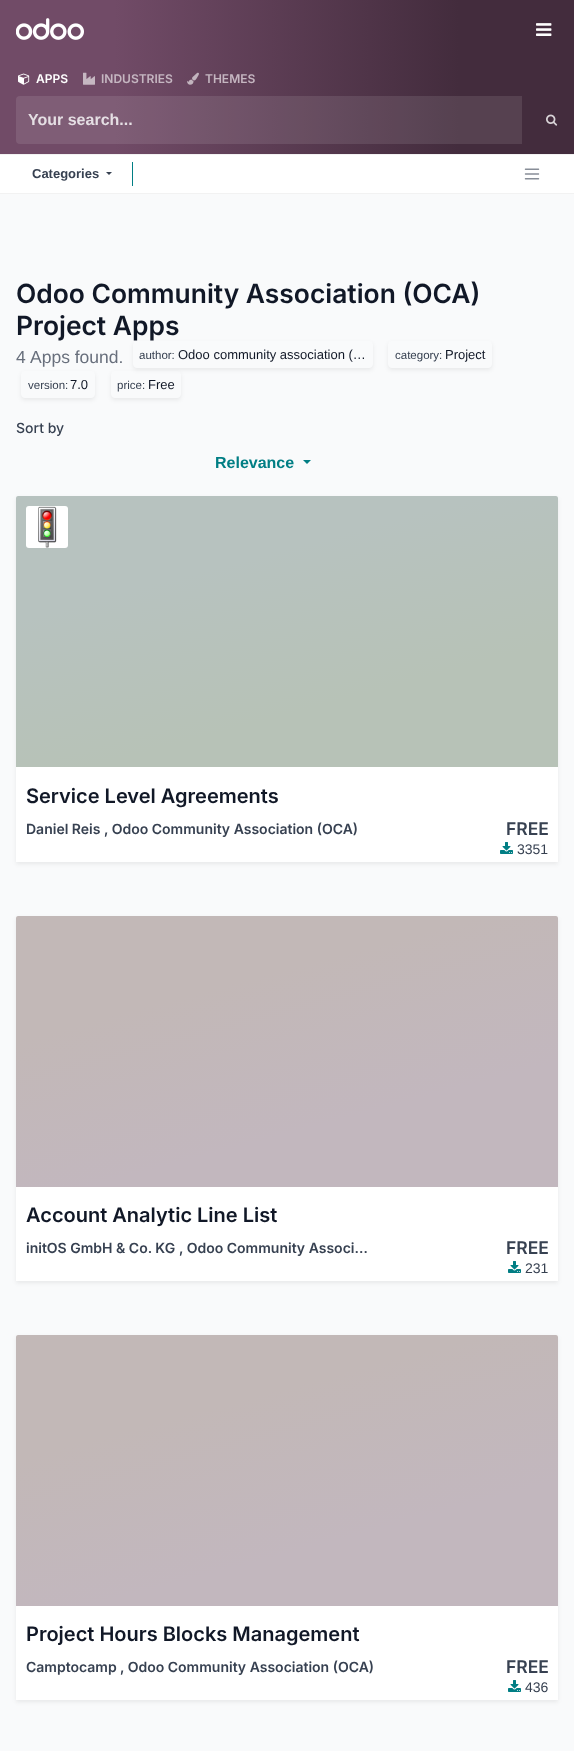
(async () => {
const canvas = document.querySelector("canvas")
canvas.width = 574
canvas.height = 1751
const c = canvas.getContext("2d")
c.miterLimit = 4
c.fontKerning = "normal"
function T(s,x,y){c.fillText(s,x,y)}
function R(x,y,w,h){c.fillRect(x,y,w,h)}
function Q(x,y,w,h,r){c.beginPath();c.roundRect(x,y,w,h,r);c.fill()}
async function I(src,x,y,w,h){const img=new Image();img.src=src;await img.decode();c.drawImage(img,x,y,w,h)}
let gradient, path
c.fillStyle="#f9fafb"
R(0,0,574,1751)
gradient = c.createLinearGradient(0,97,574,97)
gradient.addColorStop(.2,"#714b67")
gradient.addColorStop(.8,"#432c3d")
c.fillStyle = gradient
R(0,0,574,154)
await I("1.png",16,18,68,22)
await I("2.png",536,23,16,13)
await I("3.png",18,73,12,12)
c.font="600 12px Inter"
c.fillStyle="#fff"
T("APPS",36,83)
await I("4.png",83,72,12,13)
c.fillStyle="#c5b6c1"
T("INDUSTRIES",101,83)
await I("5.png",187,72,12,13)
T("THEMES",205,83)
c.fillStyle="#ffffff1a"
c.beginPath()
c.roundRect(16,96,506,48,[4,0,0,4])
c.fill()
c.font="bold 16px Liberation Sans"
c.fillStyle="#e5dfe4"
T("Your search...",28,125)
await I("6.png",546,114,12,12)
c.fillStyle="#fff"
R(0,155,574,38)
c.fillStyle="#f2f2f2"
R(0,154,574,1)
R(0,193,574,1)
c.font="bold 13px Liberation Sans"
c.fillStyle="#374151"
T("Categories",32,178)
path = new Path2D("M106 172h6l-3 3z")
c.fill(path)
c.fillStyle="#017e84"
R(132,162,1,24)
await I("7.png",524,168,16,12)
c.font="600 26.4px Inter"
c.fillStyle="#111827"
T("Odoo Community Association (OCA)",16,303)
T("Project Apps",16,335)
c.font="17.5px Liberation Sans"
c.fillStyle="#686f7c"
T("4",16,363)
T("Apps found.",30,363)
c.save()
path = new Path2D("M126 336h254v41h-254zm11 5h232c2 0 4 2 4 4v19c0 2-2 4-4 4h-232c-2 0-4-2-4-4v-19c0-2 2-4 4-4z")
c.clip(path,"evenodd")
c.fillStyle="#00000012"
c.filter="blur(2px)"
c.beginPath()
c.roundRect(133,343,240,27,4)
c.fill()
c.filter="none"
c.restore()
c.font="11.5px Liberation Sans"
c.fillStyle="#374151"
T("author:",139,359)
c.font="13px Liberation Sans"
c.fillStyle="#111827"
T("Odoo community association (…",178,359)
c.save()
path = new Path2D("M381 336h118v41h-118zm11 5h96c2 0 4 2 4 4v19c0 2-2 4-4 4h-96c-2 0-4-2-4-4v-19c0-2 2-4 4-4z")
c.clip(path,"evenodd")
c.fillStyle="#00000012"
c.filter="blur(2px)"
c.beginPath()
c.roundRect(388,343,104,27,4)
c.fill()
c.filter="none"
c.restore()
c.font="11.5px Liberation Sans"
c.fillStyle="#374151"
T("category:",395,359)
c.font="13px Liberation Sans"
c.fillStyle="#111827"
T("Project",445,359)
c.save()
path = new Path2D("M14 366h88v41h-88zm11 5h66c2 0 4 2 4 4v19c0 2-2 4-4 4h-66c-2 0-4-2-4-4v-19c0-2 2-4 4-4z")
c.clip(path,"evenodd")
c.fillStyle="#00000012"
c.filter="blur(2px)"
c.beginPath()
c.roundRect(21,373,74,27,4)
c.fill()
c.filter="none"
c.restore()
c.font="11.5px Liberation Sans"
c.fillStyle="#374151"
T("version:",28,389)
c.font="13px Liberation Sans"
c.fillStyle="#111827"
T("7.0",70,389)
c.save()
path = new Path2D("M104 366h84v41h-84zm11 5h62c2 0 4 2 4 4v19c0 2-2 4-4 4h-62c-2 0-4-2-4-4v-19c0-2 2-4 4-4z")
c.clip(path,"evenodd")
c.fillStyle="#00000012"
c.filter="blur(2px)"
c.beginPath()
c.roundRect(111,373,70,27,4)
c.fill()
c.filter="none"
c.restore()
c.font="11.5px Liberation Sans"
c.fillStyle="#374151"
T("price:",117,389)
c.font="13px Liberation Sans"
c.fillStyle="#111827"
T("Free",148,389)
c.font="500 14px Inter"
c.fillStyle="#374151"
T("Sort by",16,433)
c.font="bold 16px Liberation Sans"
c.fillStyle="#017e84"
T("Relevance",215,468)
path = new Path2D("M303 460h8l-4 4z")
c.fill(path)
c.fillStyle="#00000012"
c.filter="blur(2px)"
c.beginPath()
c.rect(16,498,542,366)
c.fill()
c.filter="none"
c.fillStyle="#fff"
R(16,496,542,366)
gradient = c.createLinearGradient(339,826,235,437)
gradient.addColorStop(.3,"#b7c2b7")
gradient.addColorStop(.7,"#b7c2bf")
c.fillStyle = gradient
c.beginPath()
c.roundRect(16,496,542,271,[2,2,0,0])
c.fill()
c.fillStyle="#fff"
Q(26,506,42,42,3)
await I("8.png",38,506,19,42)
c.font="600 20px Inter"
c.fillStyle="#111827"
T("Service Level Agreements",26,803)
c.font="600 14px Inter"
c.fillStyle="#374151"
T("Daniel Reis",26,834)
T(", Odoo Community Association (OCA)",104,834)
c.font="600 17.5px Inter"
T("FREE",506,835)
await I("9.png",500,842,13,12)
c.font="14px Liberation Sans"
T("3351",517,854)
c.fillStyle="#00000012"
c.filter="blur(2px)"
c.beginPath()
c.rect(16,918,542,365)
c.fill()
c.filter="none"
c.fillStyle="#fff"
R(16,916,542,365)
gradient = c.createLinearGradient(339,1246,235,857)
gradient.addColorStop(.3,"#c2b7be")
gradient.addColorStop(.7,"#c2b8b7")
c.fillStyle = gradient
c.beginPath()
c.roundRect(16,916,542,271,[2,2,0,0])
c.fill()
c.font="600 20px Inter"
c.fillStyle="#111827"
T("Account Analytic Line List",26,1222)
c.font="600 14px Inter"
c.fillStyle="#374151"
T("initOS GmbH & Co. KG",26,1253)
T(", Odoo Community Associ…",179,1253)
c.font="600 17.5px Inter"
T("FREE",506,1254)
await I("9.png",508,1261,13,12)
c.font="14px Liberation Sans"
T("231",525,1273)
c.fillStyle="#00000012"
c.filter="blur(2px)"
c.beginPath()
c.rect(16,1337,542,365)
c.fill()
c.filter="none"
c.fillStyle="#fff"
R(16,1335,542,365)
gradient = c.createLinearGradient(339,1665,235,1276)
gradient.addColorStop(.3,"#c2b7be")
gradient.addColorStop(.7,"#c2b8b7")
c.fillStyle = gradient
c.beginPath()
c.roundRect(16,1335,542,271,[2,2,0,0])
c.fill()
c.font="600 20px Inter"
c.fillStyle="#111827"
T("Project Hours Blocks Management",26,1641)
c.font="600 14px Inter"
c.fillStyle="#374151"
T("Camptocamp",26,1672)
T(", Odoo Community Association (OCA)",120,1672)
c.font="600 17.5px Inter"
T("FREE",506,1673)
await I("9.png",508,1680,13,12)
c.font="14px Liberation Sans"
T("436",525,1692)
})()
